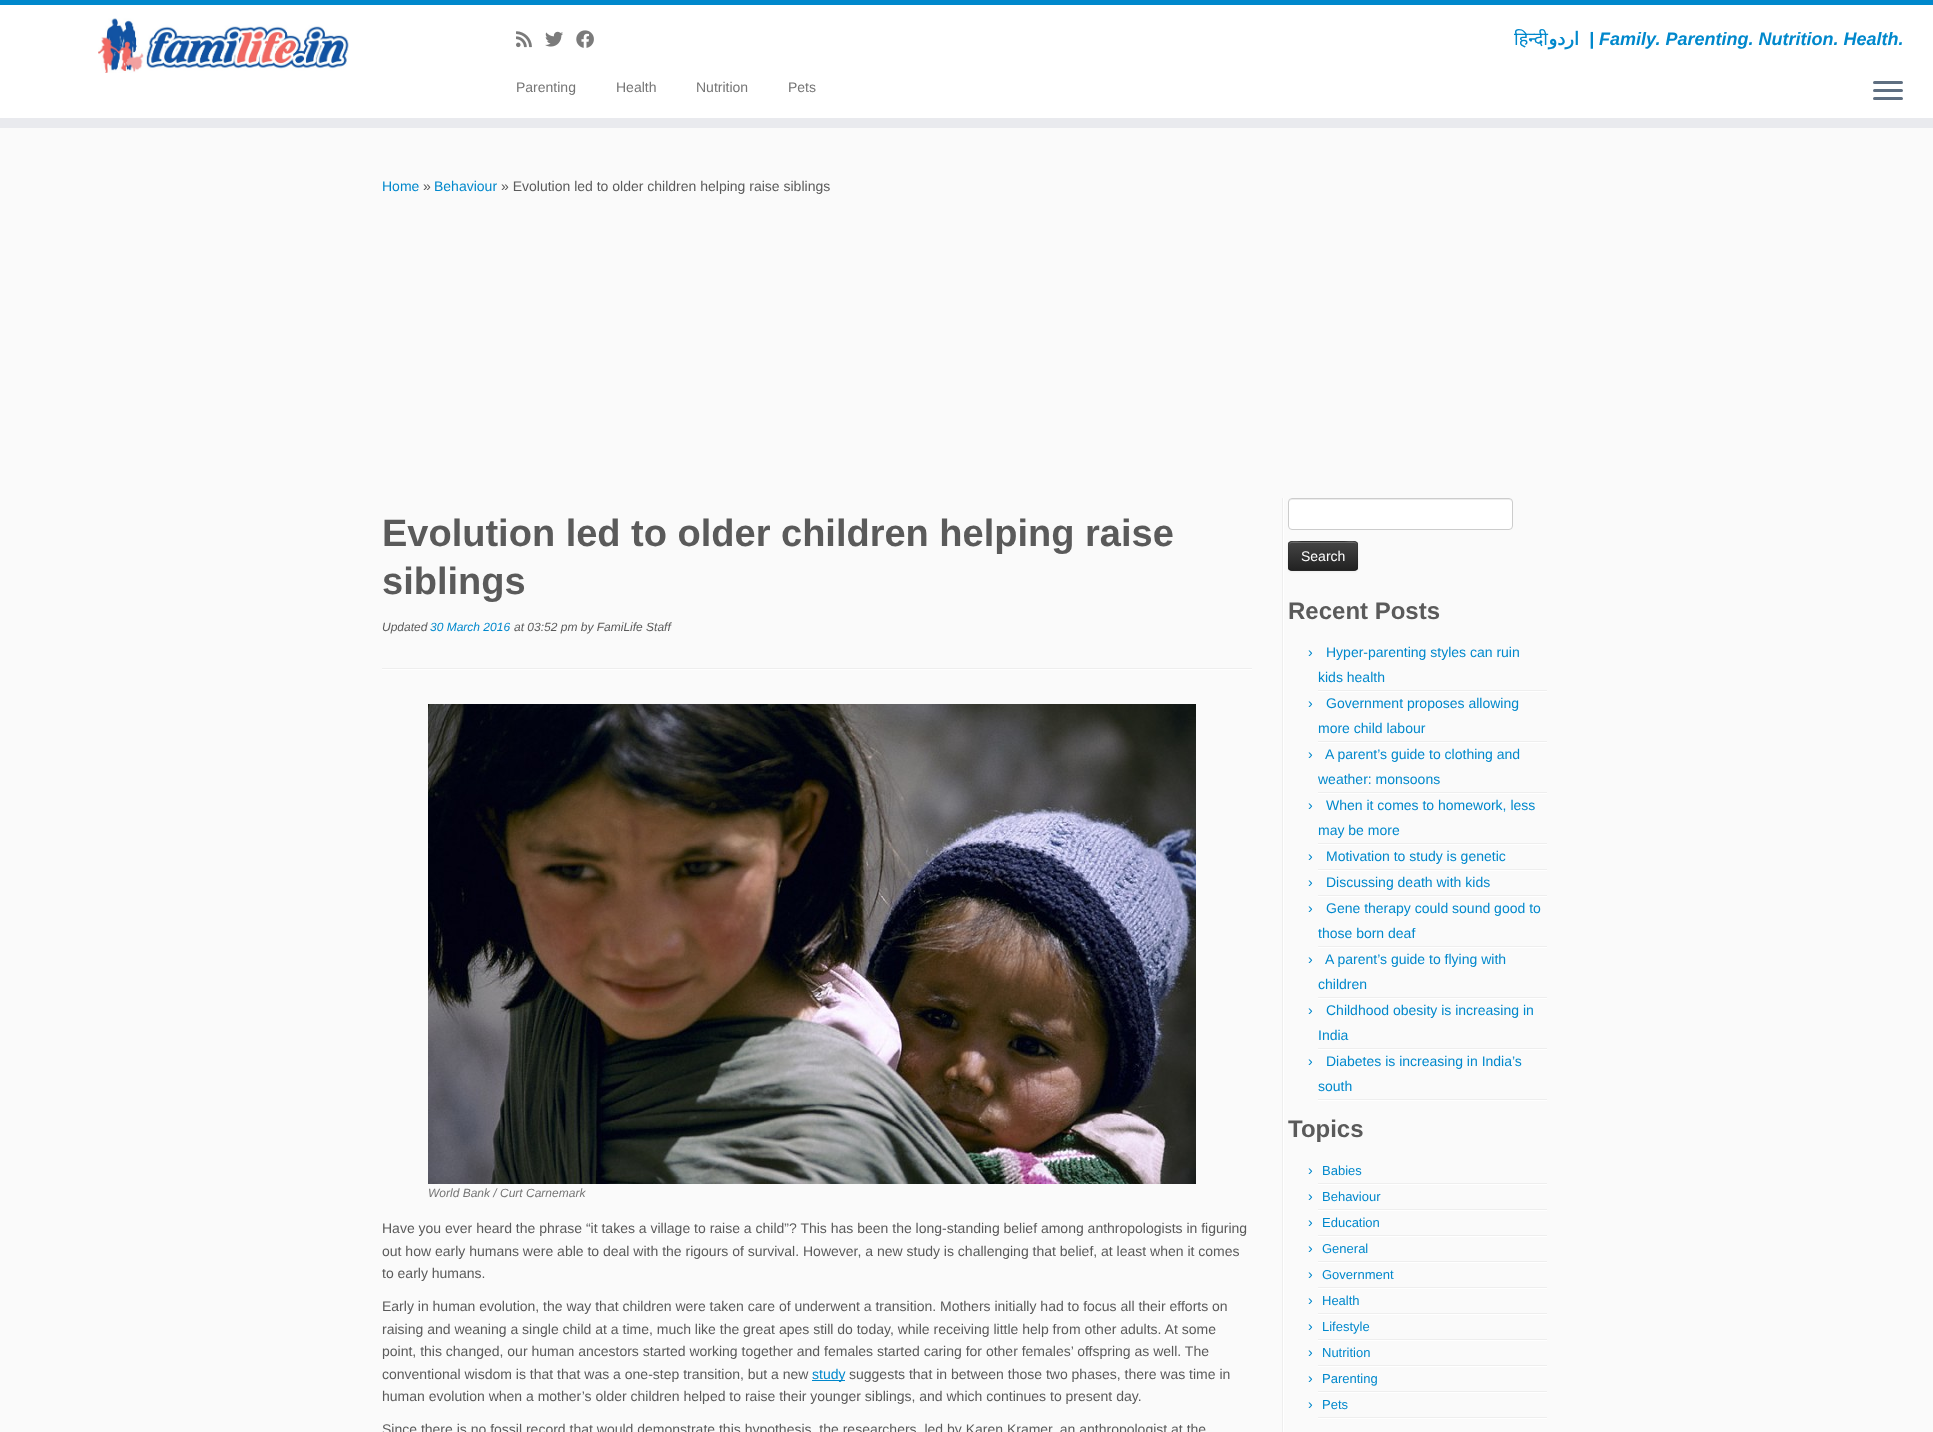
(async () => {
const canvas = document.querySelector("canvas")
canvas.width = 1933
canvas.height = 1432
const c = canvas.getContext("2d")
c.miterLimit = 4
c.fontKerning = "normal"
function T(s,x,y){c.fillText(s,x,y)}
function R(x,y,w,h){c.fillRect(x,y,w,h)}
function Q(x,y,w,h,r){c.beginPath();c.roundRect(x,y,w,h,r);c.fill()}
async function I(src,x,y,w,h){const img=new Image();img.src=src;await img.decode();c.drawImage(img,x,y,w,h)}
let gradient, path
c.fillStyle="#fafafa"
R(0,0,1933,1432)
c.fillStyle="#fff"
R(0,5,1933,113)
c.fillStyle="#08c"
R(0,0,1933,5)
c.fillStyle="#e9eaee"
R(0,118,1933,10)
await I("1.png",98,18,251,55)
await I("2.png",516,31,16,17)
await I("3.png",545,31,18,16)
await I("4.png",576,30,18,18)
c.font="18px Noto Sans"
c.fillStyle="#08c"
T("हिन्दी",1514,45)
c.direction="rtl"
c.font="bold 18px DejaVu Sans"
T("اردو",1579,45)
c.direction="ltr"
c.font="italic bold 18px Liberation Sans"
T("| Family. Parenting. Nutrition. Health.",1589,45)
c.font="14px Liberation Sans"
c.fillStyle="#757575"
T("Parenting",516,92)
T("Health",616,92)
T("Nutrition",696,92)
T("Pets",788,92)
c.fillStyle="#5f6f81"
Q(1873,81,30,3,1.5)
Q(1873,89,30,3,1.5)
Q(1873,97,30,3,1.5)
c.fillStyle="#08c"
T("Home",382,191)
c.fillStyle="#5a5a5a"
T("»",423,191)
c.fillStyle="#08c"
T("Behaviour",434,191)
c.fillStyle="#5a5a5a"
T("» Evolution led to older children helping raise siblings",501,191)
c.font="bold 38px Liberation Sans"
T("Evolution led to older children helping raise",382,546)
T("siblings",382,594)
c.font="italic 12px Liberation Sans"
T("Updated",382,631)
c.fillStyle="#08c"
T("30 March 2016",430,631)
c.fillStyle="#5a5a5a"
T("at 03:52 pm by FamiLife Staff",514,631)
c.fillStyle="#eee"
R(382,668,870,1)
c.fillStyle="#fff"
R(382,669,870,1)
await I("5.png",428,704,768,480)
c.fillStyle="#757575"
T("World Bank / Curt Carnemark",428,1197)
c.font="14px Liberation Sans"
c.fillStyle="#5a5a5a"
T("Have you ever heard the phrase “it takes a village to raise a child”? This has been the long-standing belief among anthropologists in figuring",382,1233)
T("out how early humans were able to deal with the rigours of survival. However, a new study is challenging that belief, at least when it comes",382,1256)
T("to early humans.",382,1278)
T("Early in human evolution, the way that children were taken care of underwent a transition. Mothers initially had to focus all their efforts on",382,1311)
T("raising and weaning a single child at a time, much like the great apes still do today, while receiving little help from other adults. At some",382,1334)
T("point, this changed, our human ancestors started working together and females started caring for other females’ offspring as well. The",382,1356)
T("conventional wisdom is that that was a one-step transition, but a new",382,1379)
c.fillStyle="#08c"
R(812,1380,33,1)
T("study",812,1379)
c.fillStyle="#5a5a5a"
T("suggests that in between those two phases, there was time in",849,1379)
T("human evolution when a mother’s older children helped to raise their younger siblings, and which continues to present day.",382,1401)
T("Since there is no fossil record that would demonstrate this hypothesis, the researchers, led by Karen Kramer, an anthropologist at the",382,1434)
c.fillStyle="#eee"
R(1282,498,1,934)
c.fillStyle="#fff"
R(1283,498,1,934)
Q(1288,498,225,32,4)
c.fillStyle="#ececec"
path = new Path2D("M1292 500h217c2 0 3 1 3 3v-1c0-2-1-3-3-3h-217c-2 0-3 1-3 3v1c0-2 1-3 3-3z")
c.fill(path)
c.beginPath()
c.roundRect(1288.5,498.5,224,31,3.5)
c.strokeStyle="#ccc"
c.stroke()
c.fillStyle="#0000000d"
c.filter="blur(1px)"
c.beginPath()
c.roundRect(1288,542,70,30,4)
c.fill()
c.filter="none"
c.fillStyle="#363636"
Q(1288,541,70,30,4)
c.save()
c.beginPath()
c.roundRect(1288,541,70,30,4)
c.clip()
gradient = c.createLinearGradient(1323,542,1323,570)
gradient.addColorStop(0,"#444")
gradient.addColorStop(1,"#222")
c.fillStyle = gradient
R(1288,542,70,28)
c.restore()
c.fillStyle="#ffffff33"
path = new Path2D("M1292 543h62c2 0 3 1 3 3c0-7-9-4-13-4h-42c-4 0-13-3-13 4c0-2 1-3 3-3z")
c.fill(path)
path = new Path2D("M1356.5 569.5l-2 1h-63l-2-1")
c.strokeStyle="#00000040"
c.stroke(path)
path = new Path2D("M1289.5 569.5c-2-2-1-10.5-1-13.5c0-16-2.5-14.5 14-14.5h41c16.5 0 14-1.5 14 14.5c0 3 1 11.5-1 13.5")
c.strokeStyle="#0000001a"
c.stroke(path)
c.fillStyle="#fff"
T("Search",1301,561)
c.font="bold 24px Liberation Sans"
c.fillStyle="#5a5a5a"
T("Recent Posts",1288,619)
c.fillStyle="#eee"
R(1318,690,229,1)
c.font="14px Liberation Sans"
c.fillStyle="#08c"
T("›",1308,657)
T("Hyper-parenting styles can ruin",1326,657)
T("kids health",1318,682)
c.fillStyle="#fff"
R(1318,691,229,1)
c.fillStyle="#eee"
R(1318,741,229,1)
c.fillStyle="#08c"
T("›",1308,708)
T("Government proposes allowing",1326,708)
T("more child labour",1318,733)
c.fillStyle="#fff"
R(1318,742,229,1)
c.fillStyle="#eee"
R(1318,792,229,1)
c.fillStyle="#08c"
T("›",1308,759)
T("A parent’s guide to clothing and",1325,759)
T("weather: monsoons",1318,784)
c.fillStyle="#fff"
R(1318,793,229,1)
c.fillStyle="#eee"
R(1318,843,229,1)
c.fillStyle="#08c"
T("›",1308,810)
T("When it comes to homework, less",1326,810)
T("may be more",1318,835)
c.fillStyle="#fff"
R(1318,844,229,1)
c.fillStyle="#eee"
R(1318,869,229,1)
c.fillStyle="#08c"
T("›",1308,861)
T("Motivation to study is genetic",1326,861)
c.fillStyle="#fff"
R(1318,870,229,1)
c.fillStyle="#eee"
R(1318,895,229,1)
c.fillStyle="#08c"
T("›",1308,887)
T("Discussing death with kids",1326,887)
c.fillStyle="#fff"
R(1318,896,229,1)
c.fillStyle="#eee"
R(1318,946,229,1)
c.fillStyle="#08c"
T("›",1308,913)
T("Gene therapy could sound good to",1326,913)
T("those born deaf",1318,938)
c.fillStyle="#fff"
R(1318,947,229,1)
c.fillStyle="#eee"
R(1318,997,229,1)
c.fillStyle="#08c"
T("›",1308,964)
T("A parent’s guide to flying with",1325,964)
T("children",1318,989)
c.fillStyle="#fff"
R(1318,998,229,1)
c.fillStyle="#eee"
R(1318,1048,229,1)
c.fillStyle="#08c"
T("›",1308,1015)
T("Childhood obesity is increasing in",1326,1015)
T("India",1318,1040)
c.fillStyle="#fff"
R(1318,1049,229,1)
c.fillStyle="#eee"
R(1318,1099,229,1)
c.fillStyle="#08c"
T("›",1308,1066)
T("Diabetes is increasing in India’s",1326,1066)
T("south",1318,1091)
c.fillStyle="#fff"
R(1318,1100,229,1)
c.font="bold 24px Liberation Sans"
c.fillStyle="#5a5a5a"
T("Topics",1288,1137)
c.fillStyle="#eee"
R(1318,1183,229,1)
c.font="14px Liberation Sans"
c.fillStyle="#08c"
T("›",1308,1175)
c.font="13px Liberation Sans"
T("Babies",1322,1175)
c.fillStyle="#fff"
R(1318,1184,229,1)
c.fillStyle="#eee"
R(1318,1209,229,1)
c.font="14px Liberation Sans"
c.fillStyle="#08c"
T("›",1308,1201)
c.font="13px Liberation Sans"
T("Behaviour",1322,1201)
c.fillStyle="#fff"
R(1318,1210,229,1)
c.fillStyle="#eee"
R(1318,1235,229,1)
c.font="14px Liberation Sans"
c.fillStyle="#08c"
T("›",1308,1227)
c.font="13px Liberation Sans"
T("Education",1322,1227)
c.fillStyle="#fff"
R(1318,1236,229,1)
c.fillStyle="#eee"
R(1318,1261,229,1)
c.font="14px Liberation Sans"
c.fillStyle="#08c"
T("›",1308,1253)
c.font="13px Liberation Sans"
T("General",1322,1253)
c.fillStyle="#fff"
R(1318,1262,229,1)
c.fillStyle="#eee"
R(1318,1287,229,1)
c.font="14px Liberation Sans"
c.fillStyle="#08c"
T("›",1308,1279)
c.font="13px Liberation Sans"
T("Government",1322,1279)
c.fillStyle="#fff"
R(1318,1288,229,1)
c.fillStyle="#eee"
R(1318,1313,229,1)
c.font="14px Liberation Sans"
c.fillStyle="#08c"
T("›",1308,1305)
c.font="13px Liberation Sans"
T("Health",1322,1305)
c.fillStyle="#fff"
R(1318,1314,229,1)
c.fillStyle="#eee"
R(1318,1339,229,1)
c.font="14px Liberation Sans"
c.fillStyle="#08c"
T("›",1308,1331)
c.font="13px Liberation Sans"
T("Lifestyle",1322,1331)
c.fillStyle="#fff"
R(1318,1340,229,1)
c.fillStyle="#eee"
R(1318,1365,229,1)
c.font="14px Liberation Sans"
c.fillStyle="#08c"
T("›",1308,1357)
c.font="13px Liberation Sans"
T("Nutrition",1322,1357)
c.fillStyle="#fff"
R(1318,1366,229,1)
c.fillStyle="#eee"
R(1318,1391,229,1)
c.font="14px Liberation Sans"
c.fillStyle="#08c"
T("›",1308,1383)
c.font="13px Liberation Sans"
T("Parenting",1322,1383)
c.fillStyle="#fff"
R(1318,1392,229,1)
c.fillStyle="#eee"
R(1318,1417,229,1)
c.font="14px Liberation Sans"
c.fillStyle="#08c"
T("›",1308,1409)
c.font="13px Liberation Sans"
T("Pets",1322,1409)
c.fillStyle="#fff"
R(1318,1418,229,1)
})()
